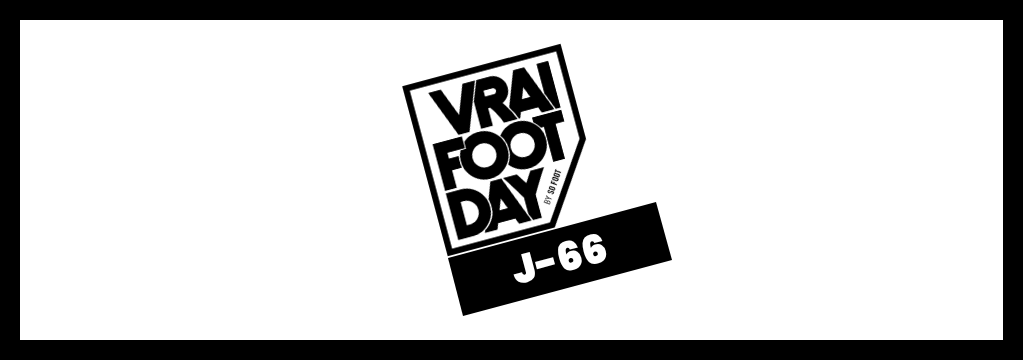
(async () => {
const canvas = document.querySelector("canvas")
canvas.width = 1023
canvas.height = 360
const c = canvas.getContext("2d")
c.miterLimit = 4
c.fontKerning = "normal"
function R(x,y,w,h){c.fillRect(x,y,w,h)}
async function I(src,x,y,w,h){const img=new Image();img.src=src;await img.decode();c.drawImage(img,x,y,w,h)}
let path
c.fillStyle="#fff"
R(0,0,1023,360)
await I("1.png",402,43,185,214)
c.fillStyle="#000"
path = new Path2D("M448 258l208-56l16 58l-209 56z")
c.fill(path)
c.strokeStyle="#000"
c.lineWidth=20
c.strokeRect(10,10,1003,340)
c.font="900 40px Poppins"
c.fillStyle="#fff"
c.save()
c.translate(516,285)
c.rotate(-15 * Math.PI / 180)
c.fillText("J-66",0,0)
c.restore()
})()
